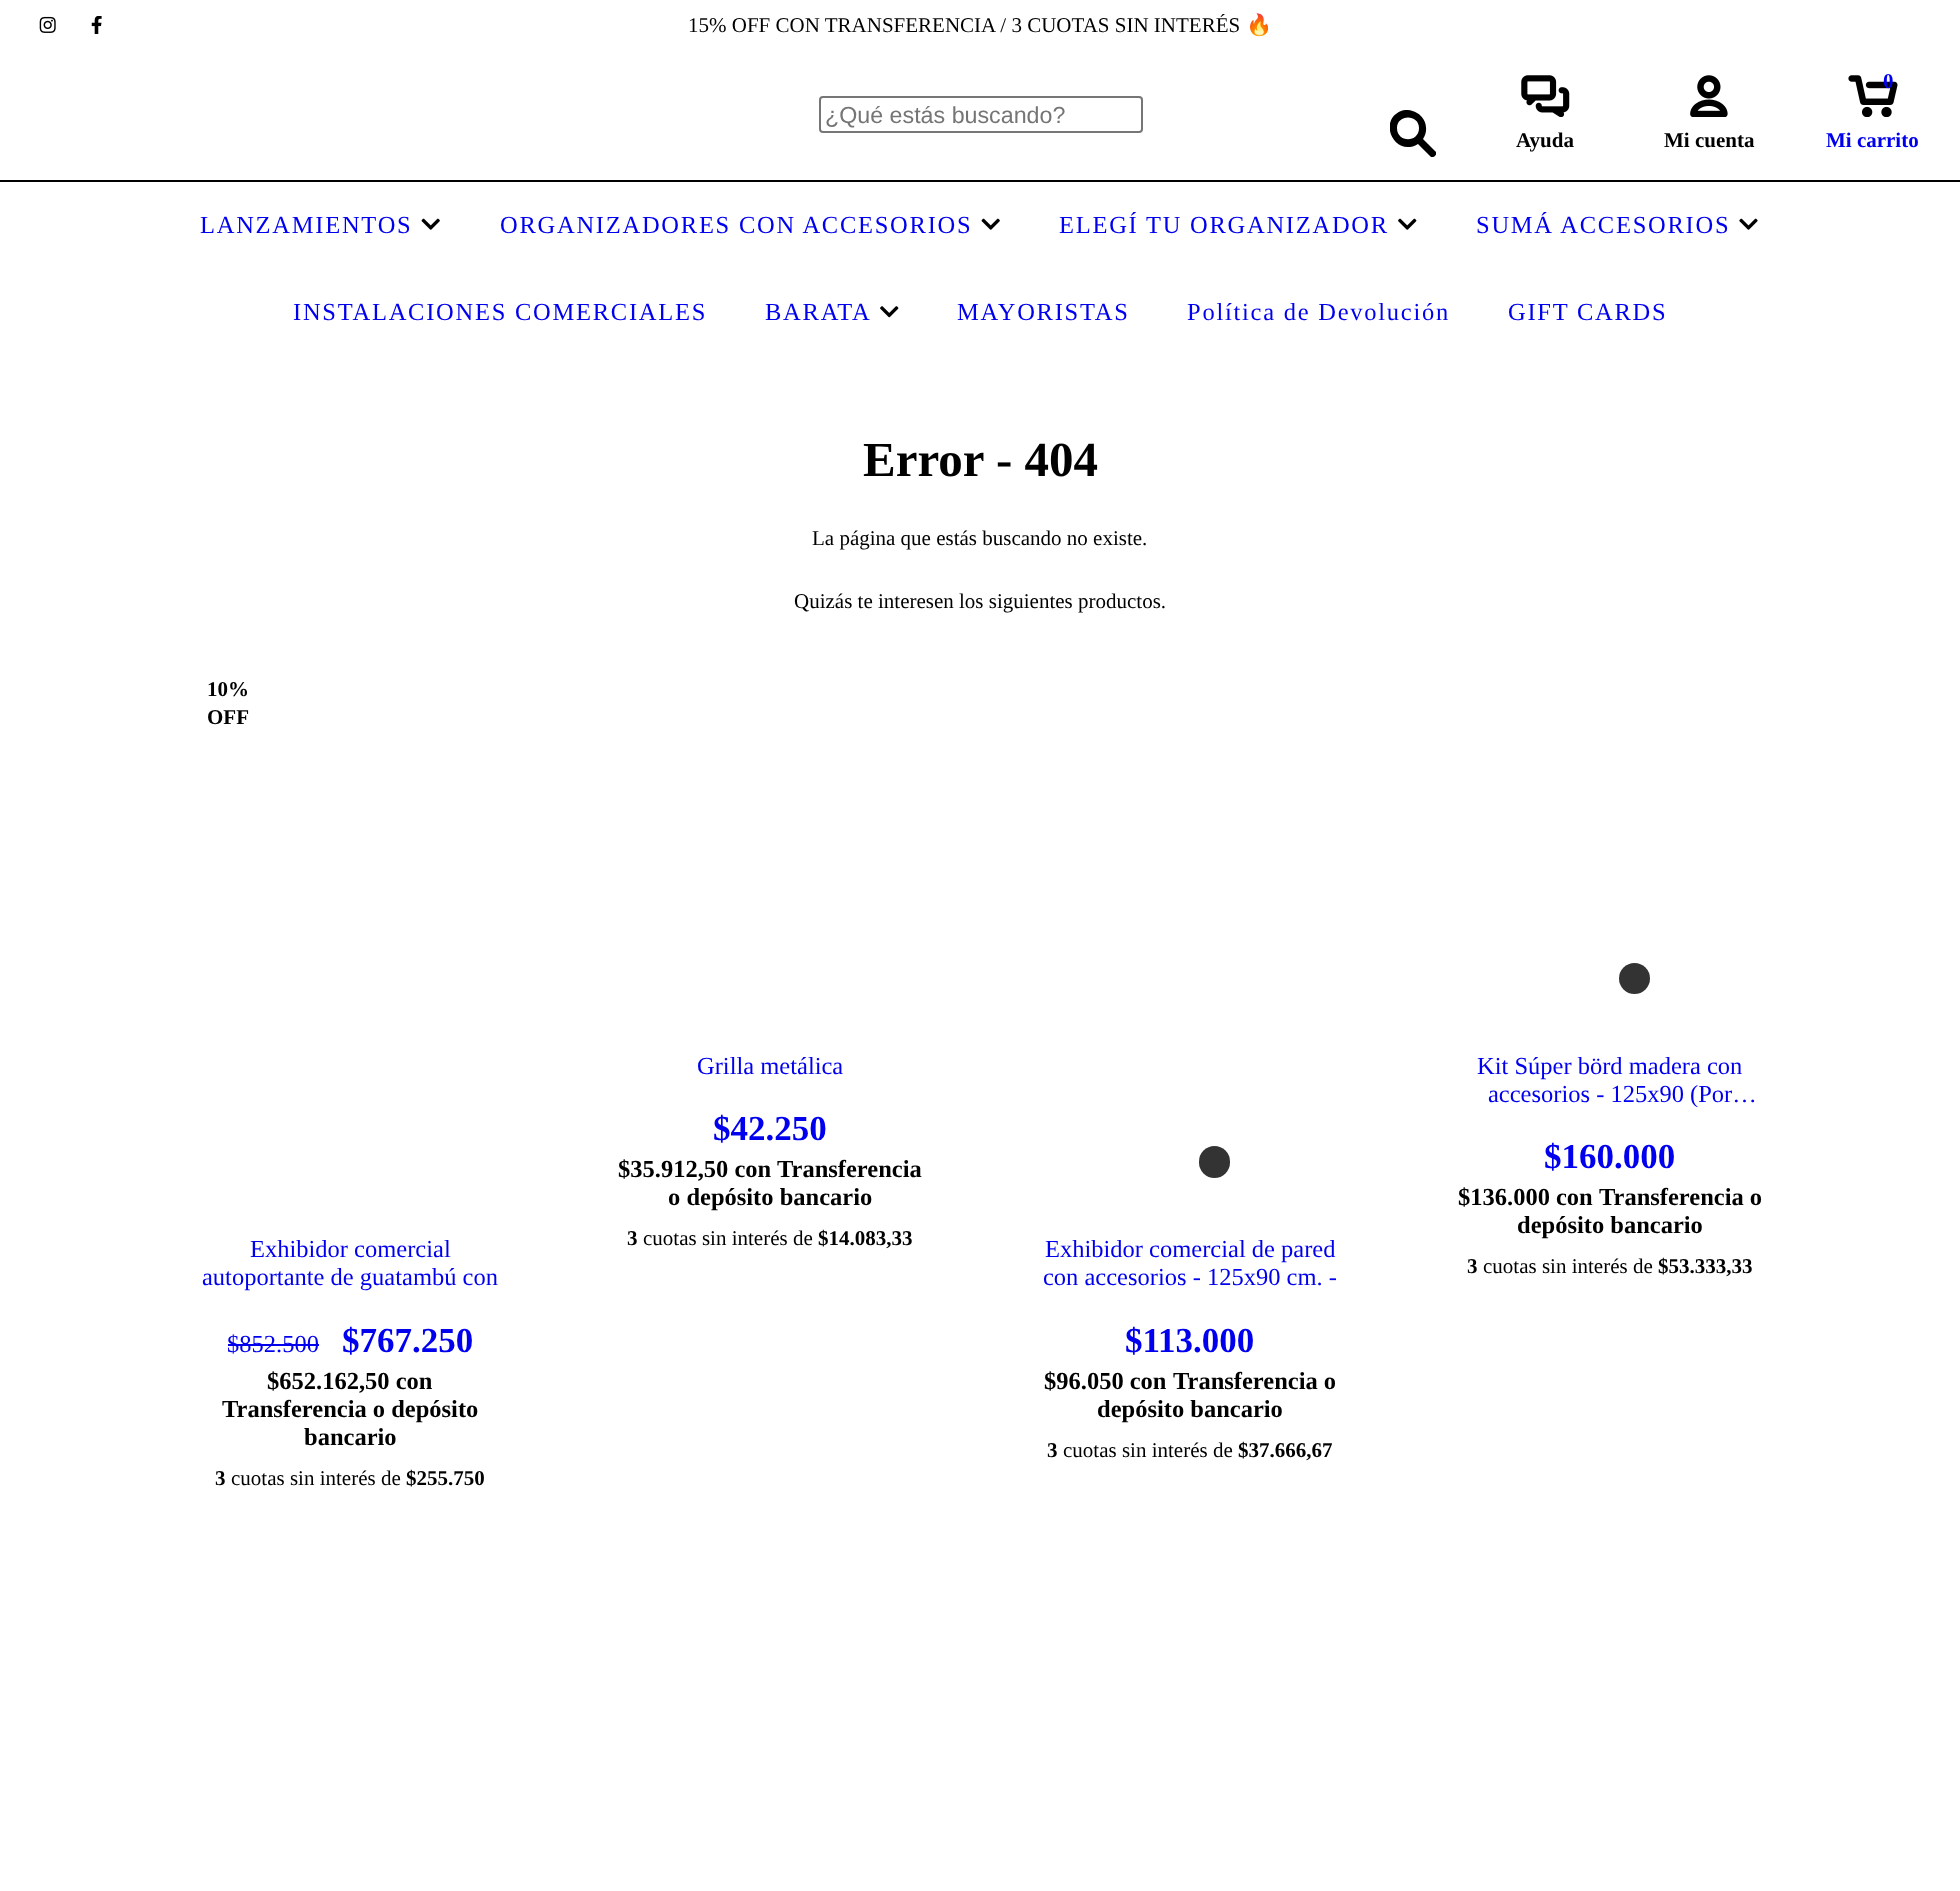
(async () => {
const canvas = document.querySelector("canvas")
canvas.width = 1960
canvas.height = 1891
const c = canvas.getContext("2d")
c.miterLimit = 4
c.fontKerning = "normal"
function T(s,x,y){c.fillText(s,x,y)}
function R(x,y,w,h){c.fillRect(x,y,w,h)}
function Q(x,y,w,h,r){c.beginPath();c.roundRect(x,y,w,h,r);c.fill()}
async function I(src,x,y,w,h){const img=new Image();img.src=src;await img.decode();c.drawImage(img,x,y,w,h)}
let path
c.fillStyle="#fff"
R(0,0,1960,1891)
await I("1.png",39,16,17,17)
await I("2.png",91,16,11,18)
c.font="21px Liberation Serif"
c.fillStyle="#000"
T("15% OFF CON TRANSFERENCIA / 3 CUOTAS SIN INTERÉS",688,32)
c.font="21px Noto Color Emoji"
T("🔥",1246,32)
c.beginPath()
c.roundRect(820,97,322,35,3)
c.strokeStyle="#767676"
c.lineWidth=2
c.stroke()
c.font="23.25px Liberation Sans"
c.fillStyle="#757575"
T("¿Qué estás buscando?",825,123)
c.save()
c.beginPath()
c.rect(1390,110,46,47)
c.clip()
c.fillStyle="#000"
path = new Path2D("M1435 151l-12-12c6-9 3-21-6-26c-5-3-11-4-16-2c-24 10-6 47 17 33l13 13c4 1 7-4 4-6zm-38-23c0-14 22-14 22 0c0 15-22 15-22 0z")
c.fill(path)
c.restore()
await I("3.png",1521,75,49,42)
c.font="bold 21px Liberation Serif"
c.fillStyle="#000"
T("Ayuda",1516,147)
await I("4.png",1690,75,38,42)
T("Mi cuenta",1664,147)
await I("5.png",1848,75,50,42)
c.fillStyle="#00e"
T("0",1883,88)
T("Mi carrito",1826,147)
c.fillStyle="#000"
R(0,180,1960,2)
c.letterSpacing="1.75px"
c.font="24.5px Liberation Serif"
c.fillStyle="#00e"
T("LANZAMIENTOS",200,233)
await I("6.png",421,218,19,12)
T("ORGANIZADORES CON ACCESORIOS",500,233)
await I("6.png",981,218,19,12)
T("ELEGÍ TU ORGANIZADOR",1059,233)
await I("7.png",1398,218,19,12)
T("SUMÁ ACCESORIOS",1476,233)
await I("8.png",1739,218,19,12)
T("INSTALACIONES COMERCIALES",293,320)
T("BARATA",765,320)
await I("9.png",880,306,19,12)
T("MAYORISTAS",957,320)
T("Política de Devolución",1187,320)
T("GIFT CARDS",1508,320)
c.letterSpacing="0px"
c.font="bold 49px Liberation Serif"
c.fillStyle="#000"
T("Error - 404",863,476)
c.font="21px Liberation Serif"
T("La página que estás buscando no existe.",812,545)
T("Quizás te interesen los siguientes productos.",794,608)
c.font="bold 21px Liberation Serif"
T("10%",207,696)
T("OFF",207,724)
c.font="24.5px Liberation Serif"
c.fillStyle="#00e"
T("Exhibidor comercial",250,1257)
T("autoportante de guatambú con",202,1285)
T("$852.500",227,1352)
R(228,1344,91,2)
c.font="bold 35px Liberation Serif"
T("$767.250",342,1352)
c.font="bold 24.5px Liberation Serif"
c.fillStyle="#000"
T("$652.162,50 con",267,1389)
T("Transferencia o depósito",222,1417)
T("bancario",304,1445)
c.font="bold 21px Liberation Serif"
T("3",215,1485)
c.font="21px Liberation Serif"
T("cuotas sin interés de",231,1485)
c.font="bold 21px Liberation Serif"
T("$255.750",406,1485)
c.font="24.5px Liberation Serif"
c.fillStyle="#00e"
T("Grilla metálica",697,1074)
c.font="bold 35px Liberation Serif"
T("$42.250",713,1140)
c.font="bold 24.5px Liberation Serif"
c.fillStyle="#000"
T("$35.912,50 con",618,1177)
T("Transferencia",777,1177)
T("o depósito bancario",668,1205)
c.font="bold 21px Liberation Serif"
T("3",627,1245)
c.font="21px Liberation Serif"
T("cuotas sin interés de",643,1245)
c.font="bold 21px Liberation Serif"
T("$14.083,33",818,1245)
c.fillStyle="#333"
c.beginPath()
c.arc(1634.5,978.5,15.5,0,7)
c.fill()
c.font="24.5px Liberation Serif"
c.fillStyle="#00e"
T("Kit Súper börd madera con",1477,1074)
T("accesorios - 125x90 (Por…",1488,1102)
c.font="bold 35px Liberation Serif"
T("$160.000",1544,1168)
c.font="bold 24.5px Liberation Serif"
c.fillStyle="#000"
T("$136.000 con",1458,1205)
T("Transferencia o",1599,1205)
T("depósito bancario",1517,1233)
c.font="bold 21px Liberation Serif"
T("3",1467,1273)
c.font="21px Liberation Serif"
T("cuotas sin interés de",1483,1273)
c.font="bold 21px Liberation Serif"
T("$53.333,33",1658,1273)
c.fillStyle="#333"
Q(1199,1146,31,32,15.5)
c.font="24.5px Liberation Serif"
c.fillStyle="#00e"
T("Exhibidor comercial de pared",1045,1257)
T("con accesorios - 125x90 cm. -",1043,1285)
c.font="bold 35px Liberation Serif"
T("$113.000",1125,1352)
c.font="bold 24.5px Liberation Serif"
c.fillStyle="#000"
T("$96.050 con",1044,1389)
T("Transferencia o",1173,1389)
T("depósito bancario",1097,1417)
c.font="bold 21px Liberation Serif"
T("3",1047,1457)
c.font="21px Liberation Serif"
T("cuotas sin interés de",1063,1457)
c.font="bold 21px Liberation Serif"
T("$37.666,67",1238,1457)
})()
